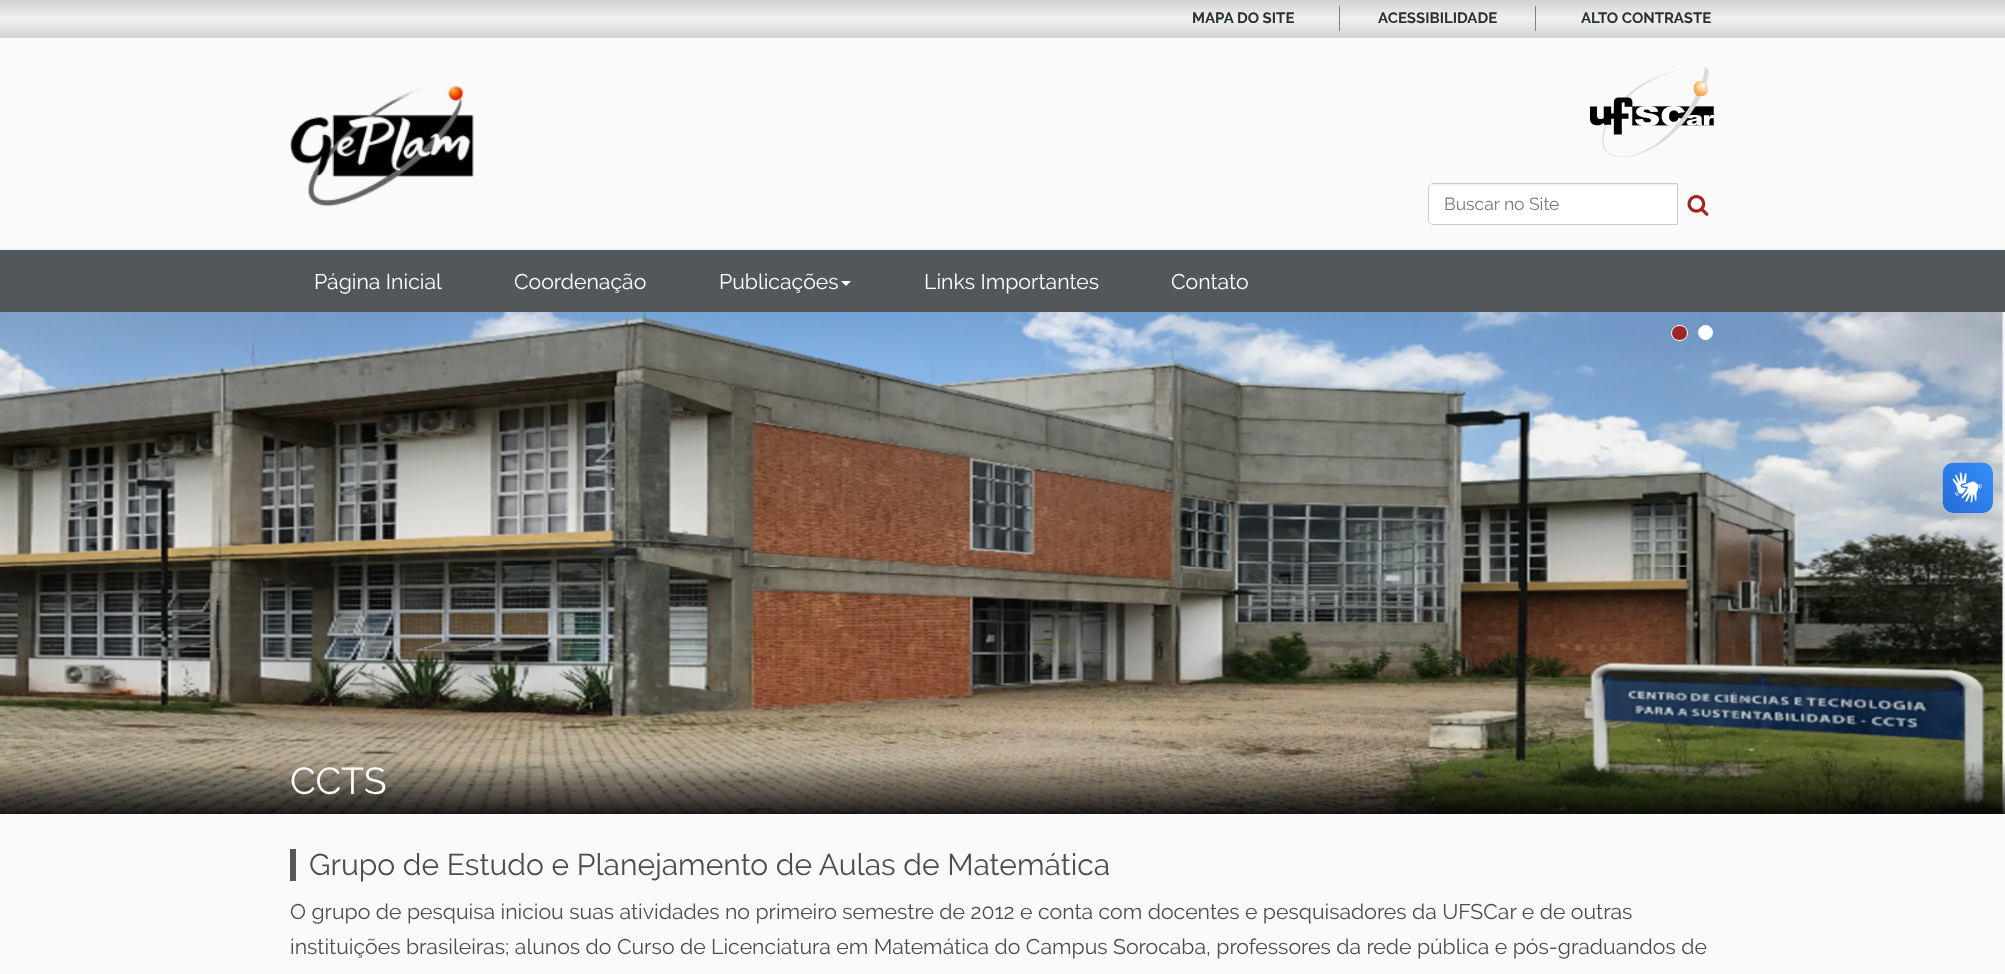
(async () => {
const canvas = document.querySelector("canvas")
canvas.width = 2005
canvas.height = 974
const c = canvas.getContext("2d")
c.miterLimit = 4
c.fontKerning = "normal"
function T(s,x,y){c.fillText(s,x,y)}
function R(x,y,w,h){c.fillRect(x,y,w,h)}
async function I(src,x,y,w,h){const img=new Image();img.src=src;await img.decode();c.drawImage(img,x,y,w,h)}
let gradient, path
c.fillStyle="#fafafa"
R(0,0,2005,974)
gradient = c.createLinearGradient(1003,0,1003,38)
gradient.addColorStop(0,"#d2d1d1")
gradient.addColorStop(.25,"#e2e1e1")
gradient.addColorStop(.5,"#f1f1f1")
gradient.addColorStop(.75,"#e2e1e1")
gradient.addColorStop(1,"#d2d1d1")
c.fillStyle = gradient
R(0,0,2005,38)
c.font="bold 15px Raleway"
c.fillStyle="#293135"
T("MAPA DO SITE",1192,23)
c.fillStyle="#808080"
R(1535,6,1,25)
R(1339,6,1,25)
c.fillStyle="#293135"
T("ACESSIBILIDADE",1378,23)
T("ALTO CONTRASTE",1581,23)
await I("1.png",1590,66,125,92)
await I("2.png",290,85,184,122)
c.fillStyle="#fff"
c.beginPath()
c.roundRect(1428,183,250,42,[5,0,0,5])
c.fill()
c.fillStyle="#ececec"
path = new Path2D("M1432 185h244v-1h-243c-2 0-4 2-4 4v1c0-2 1-4 3-4z")
c.fill(path)
c.beginPath()
c.roundRect(1428.5,183.5,249,41,[4.5,0,0,4.5])
c.strokeStyle="#ccc"
c.stroke()
c.font="17.5px Raleway"
c.fillStyle="#777"
T("Buscar no Site",1444,210)
await I("3.png",1687,195,22,21)
c.fillStyle="#0000002b"
c.filter="blur(2px)"
c.beginPath()
c.rect(0,251,2005,63)
c.fill()
c.filter="none"
c.fillStyle="#545759"
R(0,250,2005,62)
c.font="21.25px Raleway"
c.fillStyle="#fff"
T("Página Inicial",314,289)
T("Coordenação",514,289)
T("Publicações",719,289)
path = new Path2D("M841 281h10l-5 5z")
c.fill(path)
T("Links Importantes",924,289)
T("Contato",1171,289)
c.fillStyle="#666"
R(0,813,2005,1)
await I("4.png",0,312,2005,502)
c.fillStyle="#a22525"
c.beginPath()
c.roundRect(1671.5,325.5,16,15,7.5)
c.fill()
c.strokeStyle="#fff"
c.stroke()
c.fillStyle="#fff"
c.beginPath()
c.arc(1705.5,332.5,7,0,7)
c.fill()
c.stroke()
gradient = c.createLinearGradient(1003,760,1003,814)
gradient.addColorStop(0,"#00000000")
gradient.addColorStop(1,"#000000d9")
c.fillStyle = gradient
R(0,761,2005,53)
c.font="37.5px Raleway"
c.fillStyle="#fff"
T("CCTS",290,794)
c.fillStyle="#545759"
R(290,849,6,32)
c.font="30px Raleway"
c.fillStyle="#4d4d4d"
T("Grupo de Estudo e Planejamento de Aulas de Matemática",309,875)
c.font="21.25px Raleway"
T("O grupo de pesquisa iniciou suas atividades no primeiro semestre de 2012 e conta com docentes e pesquisadores da UFSCar e de outras",290,919)
T("instituições brasileiras; alunos do Curso de Licenciatura em Matemática do Campus Sorocaba, professores da rede pública e pós-graduandos de",290,954)
await I("5.png",1942,462,51,51)
await I("6.png",1943,463,50,50)
})()
